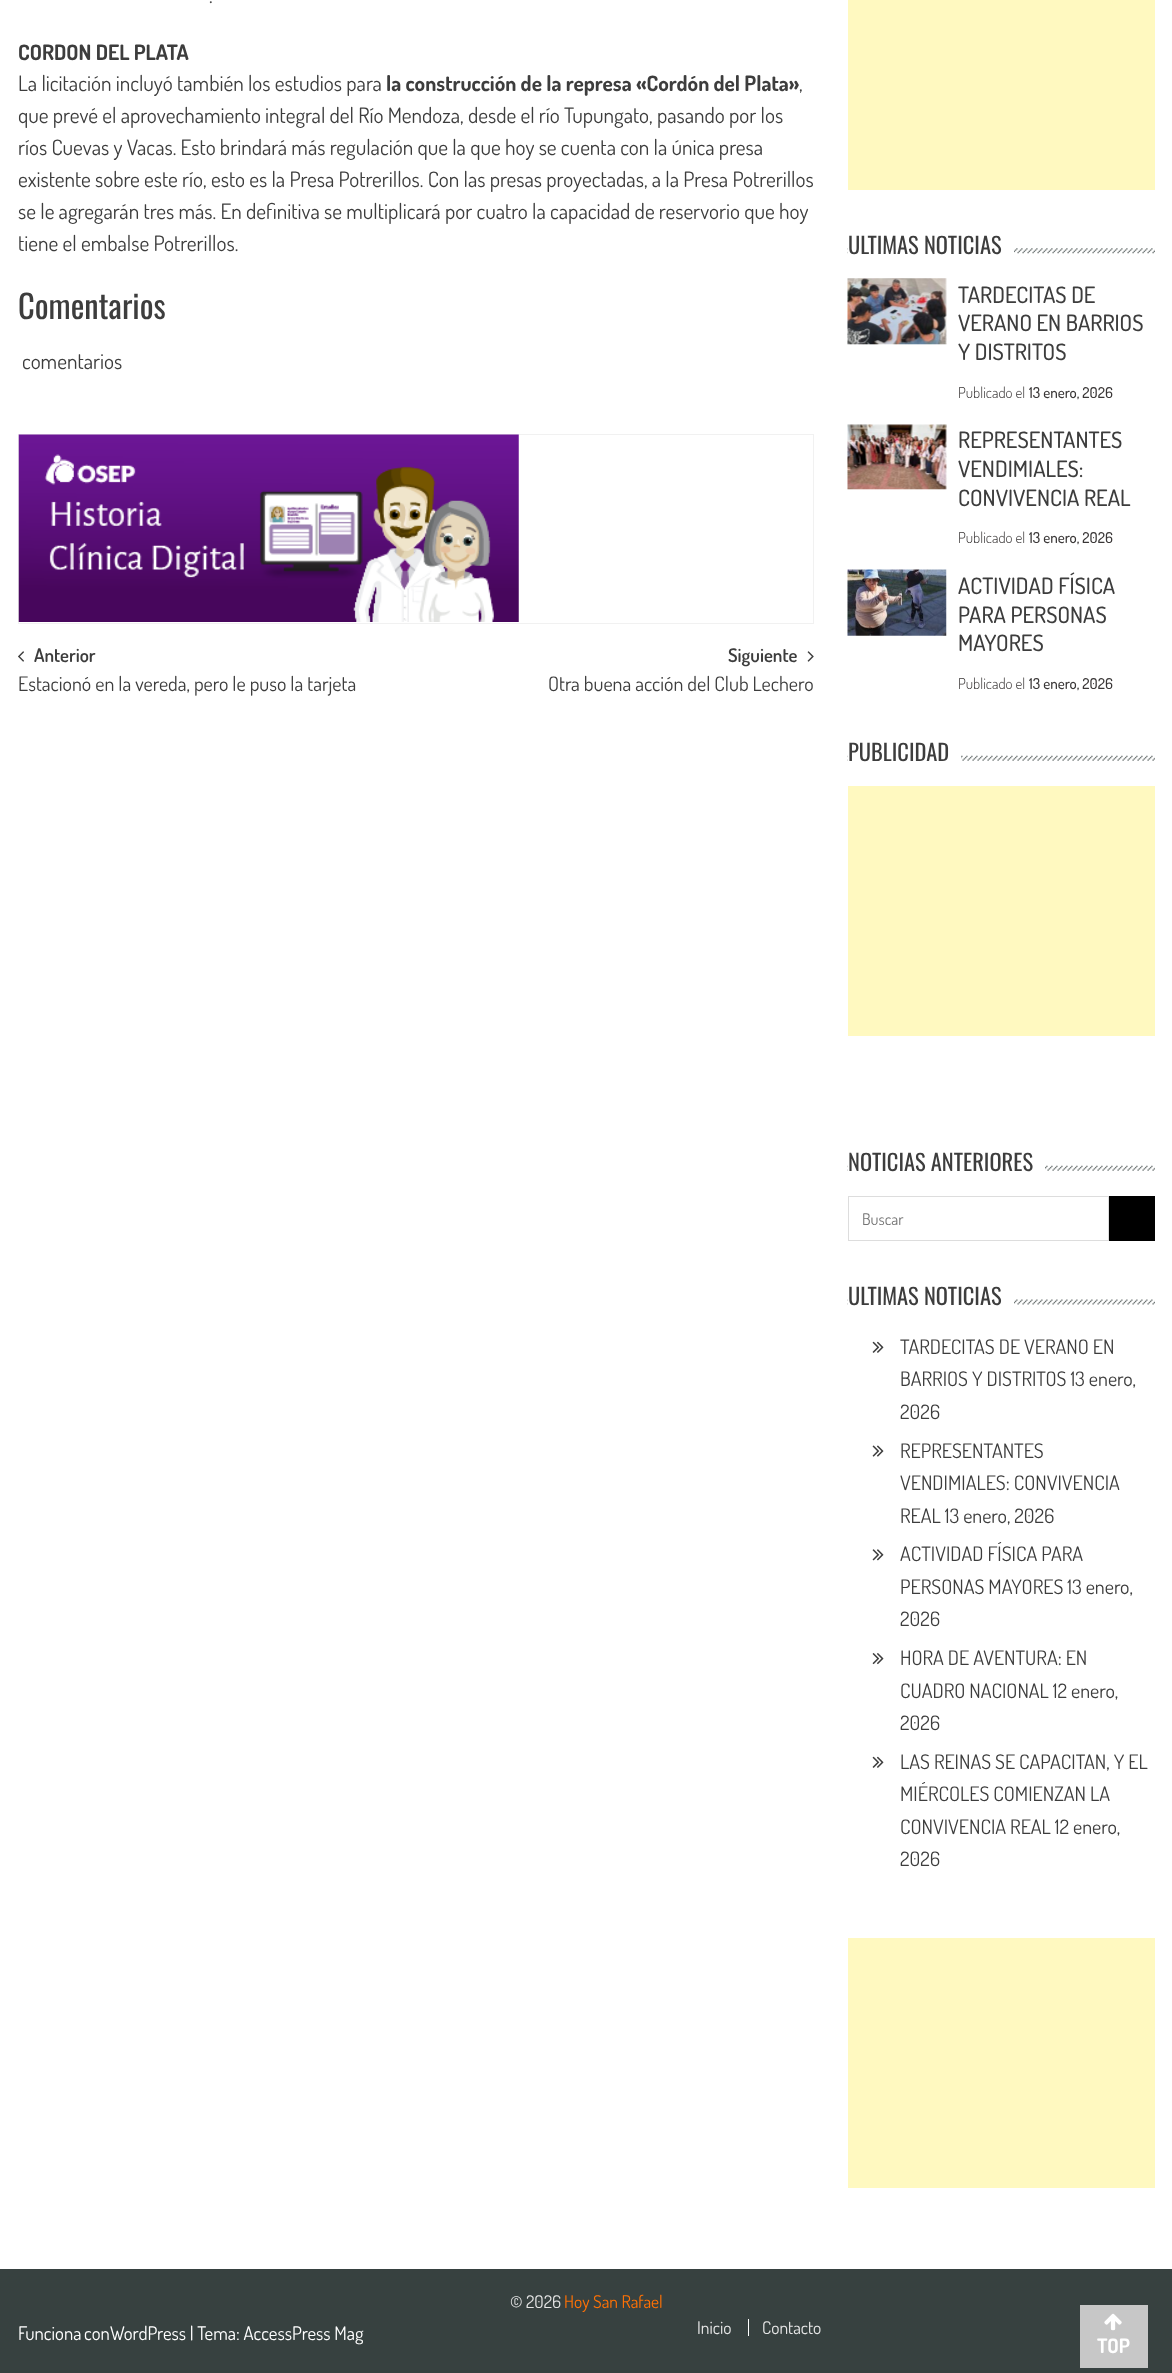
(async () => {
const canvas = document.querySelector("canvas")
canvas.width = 1172
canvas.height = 2373
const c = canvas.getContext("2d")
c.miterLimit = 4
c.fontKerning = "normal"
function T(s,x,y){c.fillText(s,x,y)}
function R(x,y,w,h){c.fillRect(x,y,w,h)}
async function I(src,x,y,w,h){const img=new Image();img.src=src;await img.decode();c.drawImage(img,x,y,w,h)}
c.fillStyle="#fff"
R(0,0,1172,2373)
c.font="21.25px Dosis"
c.fillStyle="#3d3d3d"
T(".",209,3)
c.font="bold 21.25px Dosis"
T("CORDON DEL PLATA",18,60)
c.font="21.25px Dosis"
T("La licitación incluyó también los estudios para",18,91)
c.font="bold 21.25px Dosis"
T("la construcción de la represa «Cordón del Plata»",386,91)
c.font="21.25px Dosis"
T(",",799,91)
T("que prevé el aprovechamiento integral del Río Mendoza, desde el río Tupungato, pasando por los",18,123)
T("ríos Cuevas y Vacas. Esto brindará más regulación que la que hoy se cuenta con la única presa",18,155)
T("existente sobre este río, esto es la Presa Potrerillos. Con las presas proyectadas, a la Presa Potrerillos",18,187)
T("se le agregarán tres más. En definitiva se multiplicará por cuatro la capacidad de reservorio que hoy",18,219)
T("tiene el embalse Potrerillos.",18,251)
c.font="32.5px Oswald"
T("Comentarios",18,319)
c.font="21.25px Dosis"
T("comentarios",22,369)
c.strokeStyle="#f1f1f1"
c.strokeRect(18.5,434.5,795,189)
await I("1.png",18,434,501,188)
await I("2.png",18,651,6,11)
c.font="600 18.75px Dosis"
T("Anterior",34,662)
c.font="20px Dosis"
T("Estacionó en la vereda, pero le puso la tarjeta",18,691)
c.font="600 18.75px Dosis"
T("Siguiente",728,662)
await I("3.png",807,651,7,11)
c.font="20px Dosis"
T("Otra buena acción del Club Lechero",548,691)
c.fillStyle="#fff9c0"
R(848,0,307,190)
await I("4.png",847,248,308,6)
c.fillStyle="#fff"
R(848,248,166,6)
c.font="22.5px Oswald"
c.fillStyle="#3d3d3d"
T("ULTIMAS NOTICIAS",848,254)
await I("5.png",847,278,100,67)
c.font="500 22.5px Dosis"
T("TARDECITAS DE",958,303)
T("VERANO EN BARRIOS",958,331)
T("Y DISTRITOS",958,360)
c.font="300 15px Dosis"
c.fillStyle="#3a3737"
T("Publicado el",958,398)
c.font="500 15px Dosis"
T("13 enero, 2026",1029,398)
await I("6.png",847,424,100,66)
c.font="500 22.5px Dosis"
c.fillStyle="#3d3d3d"
T("REPRESENTANTES",958,448)
T("VENDIMIALES:",958,477)
T("CONVIVENCIA REAL",958,506)
c.font="300 15px Dosis"
c.fillStyle="#3a3737"
T("Publicado el",958,543)
c.font="500 15px Dosis"
T("13 enero, 2026",1029,543)
await I("7.png",847,569,100,67)
c.font="500 22.5px Dosis"
c.fillStyle="#3d3d3d"
T("ACTIVIDAD FÍSICA",958,594)
T("PARA PERSONAS",958,623)
T("MAYORES",958,651)
c.font="300 15px Dosis"
c.fillStyle="#3a3737"
T("Publicado el",958,689)
c.font="500 15px Dosis"
T("13 enero, 2026",1029,689)
await I("8.png",847,755,308,6)
c.fillStyle="#fff"
R(848,755,113,6)
c.font="22.5px Oswald"
c.fillStyle="#3d3d3d"
T("PUBLICIDAD",848,761)
c.fillStyle="#fff9c0"
R(848,786,307,250)
await I("8.png",847,1165,308,6)
c.fillStyle="#fff"
R(848,1165,197,6)
c.fillStyle="#3d3d3d"
T("NOTICIAS ANTERIORES",848,1171)
c.strokeStyle="#ddd"
c.strokeRect(848.5,1196.5,260,44)
c.font="16px Dosis"
c.fillStyle="#757575"
T("Buscar",862,1225)
c.fillStyle="#000"
R(1109,1196,46,45)
await I("9.png",847,1299,308,6)
c.fillStyle="#fff"
R(848,1299,166,6)
c.font="22.5px Oswald"
c.fillStyle="#3d3d3d"
T("ULTIMAS NOTICIAS",848,1305)
await I("10.png",872,1341,12,12)
c.font="20px Dosis"
T("TARDECITAS DE VERANO EN",900,1354)
T("BARRIOS Y DISTRITOS 13 enero,",900,1386)
T("2026",900,1419)
await I("11.png",872,1445,12,12)
T("REPRESENTANTES",900,1458)
T("VENDIMIALES: CONVIVENCIA",900,1490)
T("REAL 13 enero, 2026",900,1523)
await I("12.png",872,1549,12,12)
T("ACTIVIDAD FÍSICA PARA",900,1561)
T("PERSONAS MAYORES 13 enero,",900,1594)
T("2026",900,1626)
await I("13.png",872,1653,12,12)
T("HORA DE AVENTURA: EN",900,1665)
T("CUADRO NACIONAL 12 enero,",900,1698)
T("2026",900,1730)
await I("10.png",872,1756,12,12)
T("LAS REINAS SE CAPACITAN, Y EL",900,1769)
T("MIÉRCOLES COMIENZAN LA",900,1801)
T("CONVIVENCIA REAL 12 enero,",900,1834)
T("2026",900,1866)
c.fillStyle="#fff9c0"
R(848,1938,307,250)
c.fillStyle="#374140"
R(0,2269,1172,104)
c.font="17.5px Dosis"
c.fillStyle="#e6e6e6"
T("© 2026",510,2308)
c.fillStyle="#ff7105"
T("Hoy San Rafael",564,2308)
c.wordSpacing="-1px"
c.font="18.75px Dosis"
c.fillStyle="#fff"
T("Funciona con",18,2340)
c.wordSpacing="0px"
T("WordPress | Tema: AccessPress Mag",110,2340)
c.font="17.5px Dosis"
c.fillStyle="#e6e6e6"
T("Inicio",697,2334)
c.fillStyle="#fff"
R(748,2319,1,17)
c.fillStyle="#e6e6e6"
T("Contacto",762,2334)
c.fillStyle="#c7c7c7"
R(1080,2305,68,63)
await I("14.png",1104,2313,18,18)
c.font="bold 20px Dosis"
c.fillStyle="#fff"
T("TOP",1097,2353)
})()
